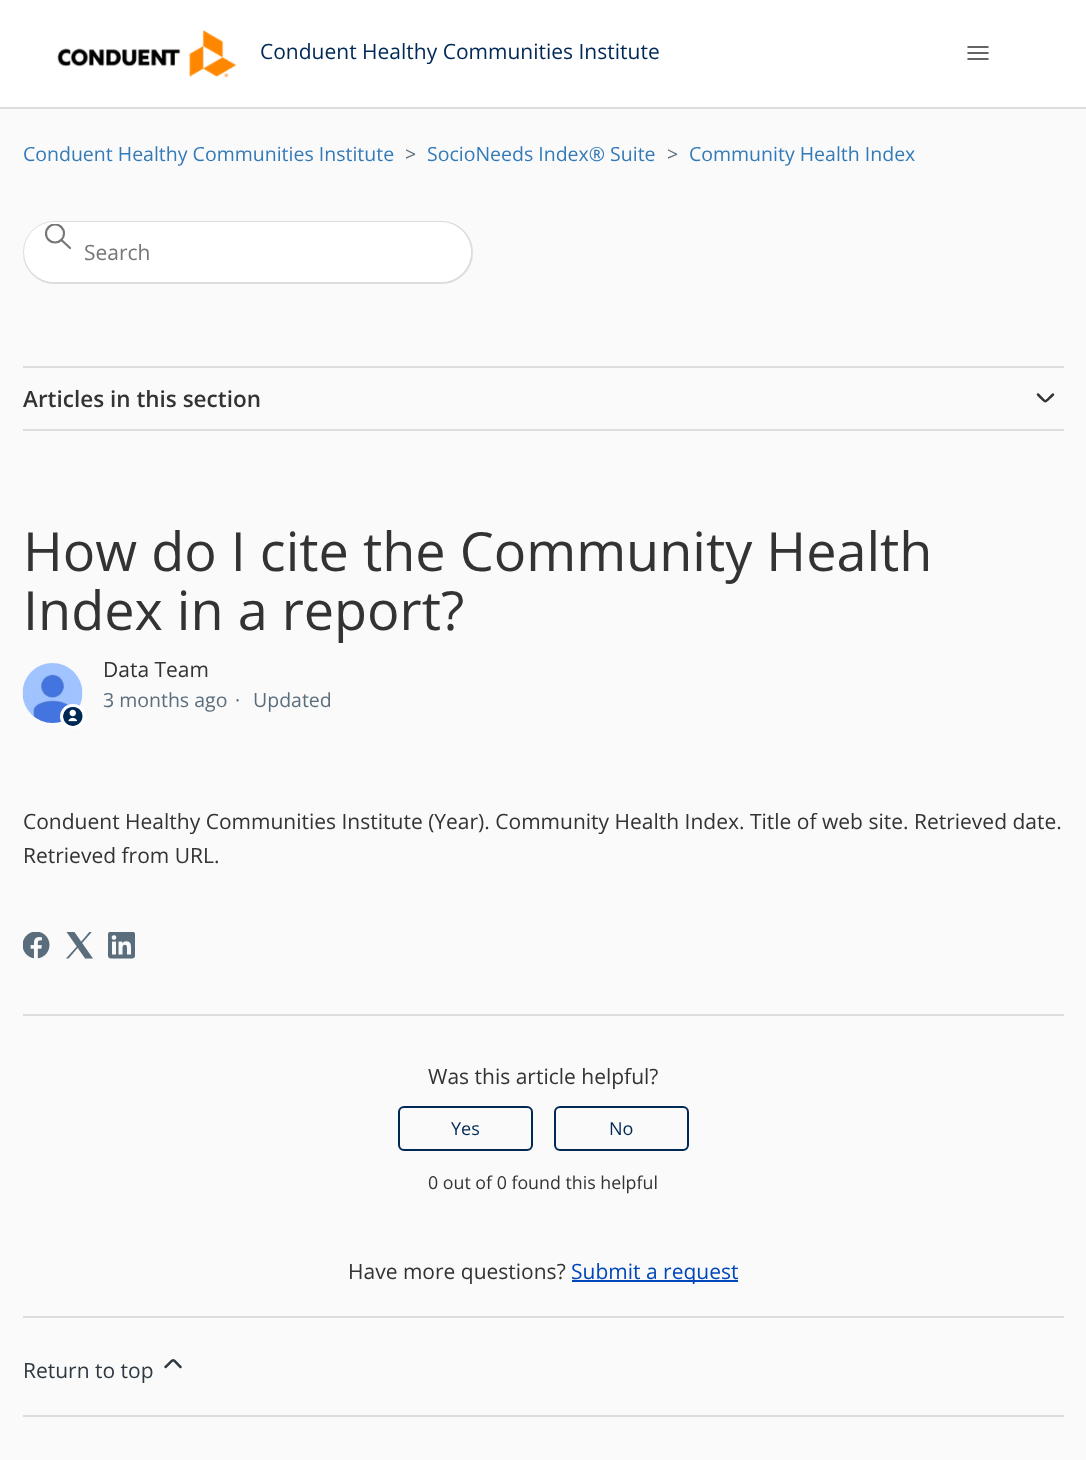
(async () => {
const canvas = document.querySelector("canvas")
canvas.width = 1086
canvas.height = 1460
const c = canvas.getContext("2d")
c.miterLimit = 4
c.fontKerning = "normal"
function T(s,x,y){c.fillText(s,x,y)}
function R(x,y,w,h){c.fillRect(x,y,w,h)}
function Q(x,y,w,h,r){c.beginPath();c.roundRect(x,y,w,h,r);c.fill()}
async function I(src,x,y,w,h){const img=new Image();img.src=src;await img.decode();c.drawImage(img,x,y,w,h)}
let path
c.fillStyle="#fff"
R(0,0,1086,1460)
await I("1.png",57,30,180,48)
c.font="21px Open Sans"
c.fillStyle="#002855"
T("Conduent Healthy Communities Institute",260,59)
path = new Path2D("M968 47h20m-20 6h20m-20 6h20")
c.strokeStyle="#333"
c.lineWidth=1.5
c.lineCap="round"
c.stroke(path)
c.fillStyle="#fafafa"
R(0,109,1086,1351)
c.fillStyle="#ddd"
R(0,107,1086,2)
c.font="19.5px Open Sans"
c.fillStyle="#337ab7"
T("Conduent Healthy Communities Institute",23,161)
c.fillStyle="#5a6d7c"
T(">",405,161)
c.fillStyle="#337ab7"
T("SocioNeeds Index® Suite",427,161)
c.fillStyle="#5a6d7c"
T(">",667,161)
c.fillStyle="#337ab7"
T("Community Health Index",689,161)
c.beginPath()
c.roundRect(24,222,448,61,30.5)
c.strokeStyle="#ddd"
c.lineWidth=2
c.stroke()
c.fillStyle="#fff"
Q(24,222,447,60,30)
c.save()
c.beginPath()
c.rect(45,224,27,27)
c.clip()
c.beginPath()
c.arc(55,233.5,9,0,7)
c.strokeStyle="#777"
c.lineWidth=2.2
c.stroke()
c.restore()
path = new Path2D("M70 248l-8-7.5")
c.strokeStyle="#777"
c.lineWidth=2.2
c.stroke(path)
c.font="21px Open Sans"
c.fillStyle="#757575"
T("Search",84,260)
c.fillStyle="#ddd"
R(23,366,1041,2)
R(23,429,1041,2)
c.font="600 22.5px Open Sans"
c.fillStyle="#333"
T("Articles in this section",23,407)
path = new Path2D("M1038 394.5c9 9 5.5 9 15 0")
c.strokeStyle="#333"
c.lineWidth=2.5
c.stroke(path)
c.font="54px Open Sans"
T("How do I cite the Community Health",23,571)
T("Index in a report?",23,630)
await I("2.png",22,663,61,60)
c.fillStyle="#fff"
c.beginPath()
c.roundRect(61.5,705.5,23,22,11)
c.fill()
c.strokeStyle="#fff"
c.lineWidth=3
c.stroke()
await I("3.png",63,707,20,19)
c.font="21px Open Sans"
c.fillStyle="#333"
T("Data Team",103,677)
c.font="19.5px Open Sans"
c.fillStyle="#5a6d7c"
T("3 months ago",103,707)
T("·",235,707)
T("Updated",253,707)
c.font="21px Open Sans"
c.fillStyle="#333"
T("Conduent Healthy Communities Institute (Year). Community Health Index. Title of web site. Retrieved date.",23,829)
T("Retrieved from URL.",23,863)
await I("4.png",23,932,27,27)
await I("5.png",66,932,27,27)
await I("6.png",108,932,27,27)
c.fillStyle="#ddd"
R(23,1014,1041,2)
c.fillStyle="#333"
T("Was this article helpful?",428,1084)
c.beginPath()
c.roundRect(399,1107,133,43,5)
c.strokeStyle="#002855"
c.lineWidth=2
c.stroke()
c.font="18px Open Sans"
c.fillStyle="#002855"
T("Yes",451,1135)
c.beginPath()
c.roundRect(555,1107,133,43,5)
c.stroke()
T("No",609,1135)
c.font="17.8px Open Sans"
c.fillStyle="#333"
T("0 out of 0 found this helpful",428,1189)
c.font="21px Open Sans"
T("Have more questions?",348,1279)
c.fillStyle="#0047ba"
R(572,1280,166,2)
T("Submit a request",571,1279)
c.fillStyle="#ddd"
R(23,1316,1041,2)
c.fillStyle="#2f3941"
T("Return to top",23,1378)
path = new Path2D("M180.5 1367c-9-9-5.5-9-15 0")
c.strokeStyle="#2f3941"
c.lineWidth=2.5
c.stroke(path)
c.fillStyle="#ddd"
R(23,1415,1041,2)
})()
